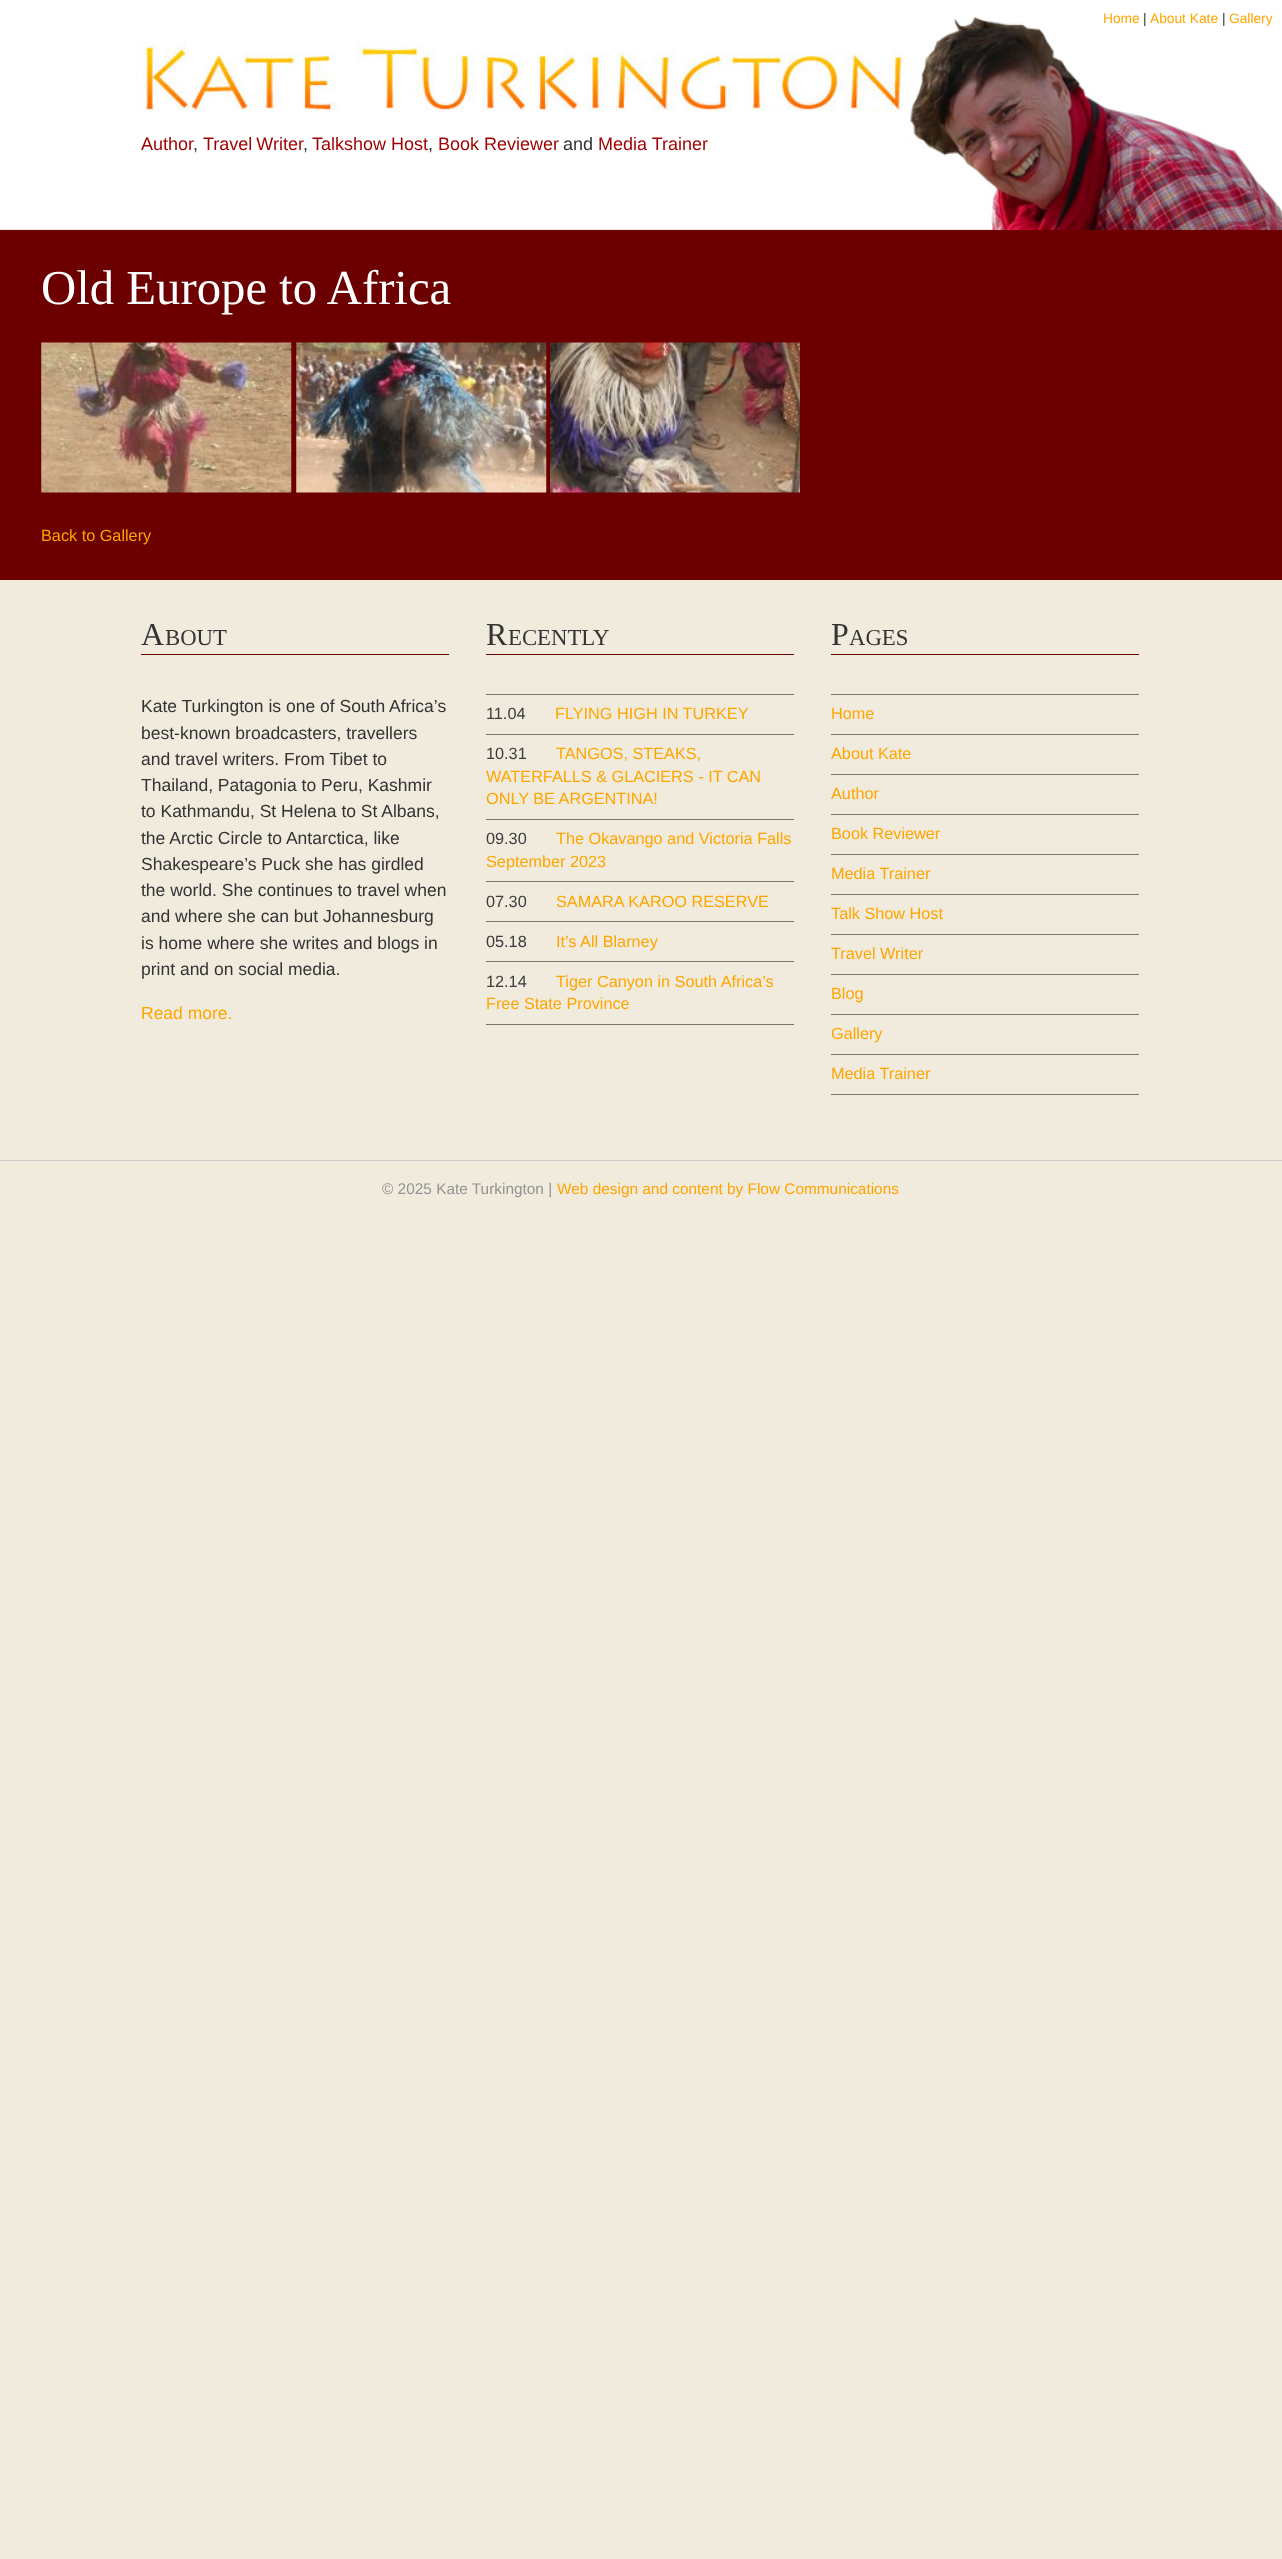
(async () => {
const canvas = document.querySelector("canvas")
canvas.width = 1282
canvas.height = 2559
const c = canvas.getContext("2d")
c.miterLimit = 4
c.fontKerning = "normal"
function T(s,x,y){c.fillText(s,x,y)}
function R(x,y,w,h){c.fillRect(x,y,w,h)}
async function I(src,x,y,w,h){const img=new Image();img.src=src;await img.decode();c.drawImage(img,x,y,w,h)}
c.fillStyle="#f1ebde"
R(0,0,1282,2559)
c.fillStyle="#fff"
R(0,0,1282,16)
await I("1.png",0,16,1282,214)
c.font="13.75px Liberation Sans"
c.fillStyle="#ffa500"
T("Home",1103,23)
c.fillStyle="#333"
T("|",1143,23)
c.fillStyle="#ffa500"
T("About Kate",1150,23)
c.fillStyle="#333"
T("|",1222,23)
c.fillStyle="#ffa500"
T("Gallery",1229,23)
c.font="18px Liberation Sans"
c.fillStyle="#9f0000"
T("Author",141,150)
c.fillStyle="#333"
T(",",193,150)
c.wordSpacing="-1px"
c.fillStyle="#9f0000"
T("Travel Writer",203,150)
c.wordSpacing="0px"
c.fillStyle="#333"
T(",",303,150)
c.fillStyle="#9f0000"
T("Talkshow Host",312,150)
c.fillStyle="#333"
T(",",428,150)
c.fillStyle="#9f0000"
T("Book Reviewer",438,150)
c.fillStyle="#333"
T("and",563,150)
c.fillStyle="#9f0000"
T("Media Trainer",598,150)
c.fillStyle="#6c0000"
R(0,230,1282,350)
c.font="48.75px Liberation Serif"
c.fillStyle="#fff"
T("Old Europe to Africa",41,304)
await I("2.png",41,342,251,151)
await I("3.png",296,342,251,151)
await I("4.png",550,342,250,151)
c.font="16.25px Liberation Sans"
c.fillStyle="#ffa500"
T("Back to Gallery",41,541)
c.fillStyle="#6c0000"
R(141,654,308,1)
c.font="32px Liberation Serif"
c.fillStyle="#333"
T("A",141,645)
c.font="22.75px Liberation Serif"
T("BOUT",165,645)
c.font="17.5px Liberation Sans"
T("Kate Turkington is one of South Africa’s",141,712)
T("best-known broadcasters, travellers",141,739)
T("and travel writers. From Tibet to",141,765)
T("Thailand, Patagonia to Peru, Kashmir",141,791)
T("to Kathmandu, St Helena to St Albans,",141,817)
T("the Arctic Circle to Antarctica, like",141,844)
T("Shakespeare’s Puck she has girdled",141,870)
T("the world. She continues to travel when",141,896)
T("and where she can but Johannesburg",141,922)
T("is home where she writes and blogs in",141,949)
T("print and on social media.",141,975)
c.fillStyle="#ffa500"
T("Read more.",141,1019)
c.fillStyle="#6c0000"
R(486,654,308,1)
c.font="32px Liberation Serif"
c.fillStyle="#333"
T("R",486,645)
c.font="22.75px Liberation Serif"
T("ECENTLY",508,645)
c.fillStyle="#7b7869"
R(486,694,308,1)
R(486,734,308,1)
c.font="16.25px Liberation Sans"
c.fillStyle="#3c3c3c"
T("11.04",486,719)
c.fillStyle="#ffa500"
T("FLYING HIGH IN TURKEY",555,719)
c.fillStyle="#7b7869"
R(486,819,308,1)
c.fillStyle="#3c3c3c"
T("10.31",486,759)
c.fillStyle="#ffa500"
T("TANGOS, STEAKS,",556,759)
T("WATERFALLS & GLACIERS - IT CAN",486,782)
T("ONLY BE ARGENTINA!",486,804)
c.fillStyle="#7b7869"
R(486,881,308,1)
c.fillStyle="#3c3c3c"
T("09.30",486,844)
c.fillStyle="#ffa500"
T("The Okavango and Victoria Falls",556,844)
T("September 2023",486,867)
c.fillStyle="#7b7869"
R(486,921,308,1)
c.fillStyle="#3c3c3c"
T("07.30",486,907)
c.fillStyle="#ffa500"
T("SAMARA KAROO RESERVE",556,907)
c.fillStyle="#7b7869"
R(486,961,308,1)
c.fillStyle="#3c3c3c"
T("05.18",486,947)
c.fillStyle="#ffa500"
T("It’s All Blarney",556,947)
c.fillStyle="#7b7869"
R(486,1024,308,1)
c.fillStyle="#3c3c3c"
T("12.14",486,987)
c.fillStyle="#ffa500"
T("Tiger Canyon in South Africa’s",556,987)
T("Free State Province",486,1009)
c.fillStyle="#6c0000"
R(831,654,308,1)
c.font="32px Liberation Serif"
c.fillStyle="#333"
T("P",831,645)
c.font="22.75px Liberation Serif"
T("AGES",849,645)
c.fillStyle="#7b7869"
R(831,694,308,1)
R(831,734,308,1)
c.font="16.25px Liberation Sans"
c.fillStyle="#ffa500"
T("Home",831,719)
c.fillStyle="#7b7869"
R(831,774,308,1)
c.fillStyle="#ffa500"
T("About Kate",831,759)
c.fillStyle="#7b7869"
R(831,814,308,1)
c.fillStyle="#ffa500"
T("Author",831,799)
c.fillStyle="#7b7869"
R(831,854,308,1)
c.fillStyle="#ffa500"
T("Book Reviewer",831,839)
c.fillStyle="#7b7869"
R(831,894,308,1)
c.fillStyle="#ffa500"
T("Media Trainer",831,879)
c.fillStyle="#7b7869"
R(831,934,308,1)
c.fillStyle="#ffa500"
T("Talk Show Host",831,919)
c.fillStyle="#7b7869"
R(831,974,308,1)
c.fillStyle="#ffa500"
T("Travel Writer",831,959)
c.fillStyle="#7b7869"
R(831,1014,308,1)
c.fillStyle="#ffa500"
T("Blog",831,999)
c.fillStyle="#7b7869"
R(831,1054,308,1)
c.fillStyle="#ffa500"
T("Gallery",831,1039)
c.fillStyle="#7b7869"
R(831,1094,308,1)
c.fillStyle="#ffa500"
T("Media Trainer",831,1079)
c.fillStyle="#ccc"
R(0,1160,1282,1)
c.font="15.4px Liberation Sans"
c.fillStyle="#939393"
T("© 2025 Kate Turkington |",382,1194)
c.fillStyle="#ffa500"
T("Web design and content by Flow Communications",557,1194)
})()
